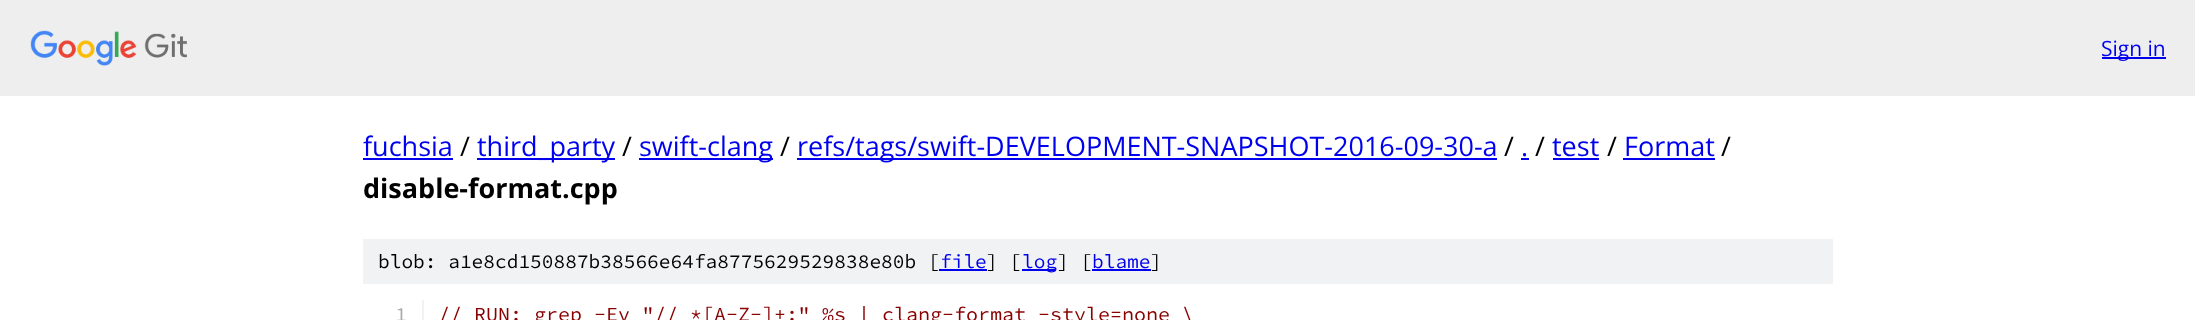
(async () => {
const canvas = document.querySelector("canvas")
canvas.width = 2195
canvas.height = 320
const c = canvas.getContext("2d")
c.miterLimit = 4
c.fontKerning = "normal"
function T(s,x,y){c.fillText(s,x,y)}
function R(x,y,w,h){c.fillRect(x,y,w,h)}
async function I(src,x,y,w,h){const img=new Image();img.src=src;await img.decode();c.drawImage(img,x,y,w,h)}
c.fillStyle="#fff"
R(0,0,2195,320)
c.fillStyle="#eee"
R(0,0,2195,96)
await I("1.png",30,30,157,36)
c.fillStyle="#00e"
R(2102,57,64,2)
c.font="21px Open Sans"
T("Sign in",2101,56)
c.font="27px Open Sans"
T("fuchsia",363,156)
R(363,158,90,2)
c.fillStyle="#000"
T("/",460,156)
c.fillStyle="#00e"
R(477,158,138,2)
T("third_party",477,156)
c.fillStyle="#000"
T("/",622,156)
c.fillStyle="#00e"
R(639,158,134,2)
T("swift-clang",639,156)
c.fillStyle="#000"
T("/",780,156)
c.fillStyle="#00e"
R(797,158,700,2)
T("refs/tags/swift-DEVELOPMENT-SNAPSHOT-2016-09-30-a",797,156)
c.fillStyle="#000"
T("/",1504,156)
c.fillStyle="#00e"
T(".",1521,156)
R(1521,158,8,2)
c.fillStyle="#000"
T("/",1535,156)
c.fillStyle="#00e"
T("test",1552,156)
R(1553,158,46,2)
c.fillStyle="#000"
T("/",1607,156)
c.fillStyle="#00e"
T("Format",1624,156)
R(1623,158,92,2)
c.fillStyle="#000"
T("/",1721,156)
c.font="bold 27px Open Sans"
T("disable-format.cpp",363,198)
c.fillStyle="#f1f2f3"
R(363,239,1470,45)
c.font="200 19.5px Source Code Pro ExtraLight"
c.fillStyle="#000"
T("blob: a1e8cd150887b38566e64fa8775629529838e80b [",378,268)
c.fillStyle="#00e"
T("file",940,268)
R(939,269,48,2)
c.fillStyle="#000"
T("] [",986,268)
c.fillStyle="#00e"
R(1022,269,34,2)
T("log",1022,268)
c.fillStyle="#000"
T("] [",1057,268)
c.fillStyle="#00e"
T("blame",1092,268)
R(1092,269,59,2)
c.fillStyle="#000"
T("]",1150,268)
c.fillStyle="#f1f2f3"
R(422,300,2,20)
c.font="200 20px Source Code Pro ExtraLight"
c.fillStyle="#aaa"
T("1",395,321)
c.fillStyle="#800"
T("// RUN: grep -Ev \"// *[A-Z-]+:\" %s | clang-format -style=none \\",438,321)
})()
